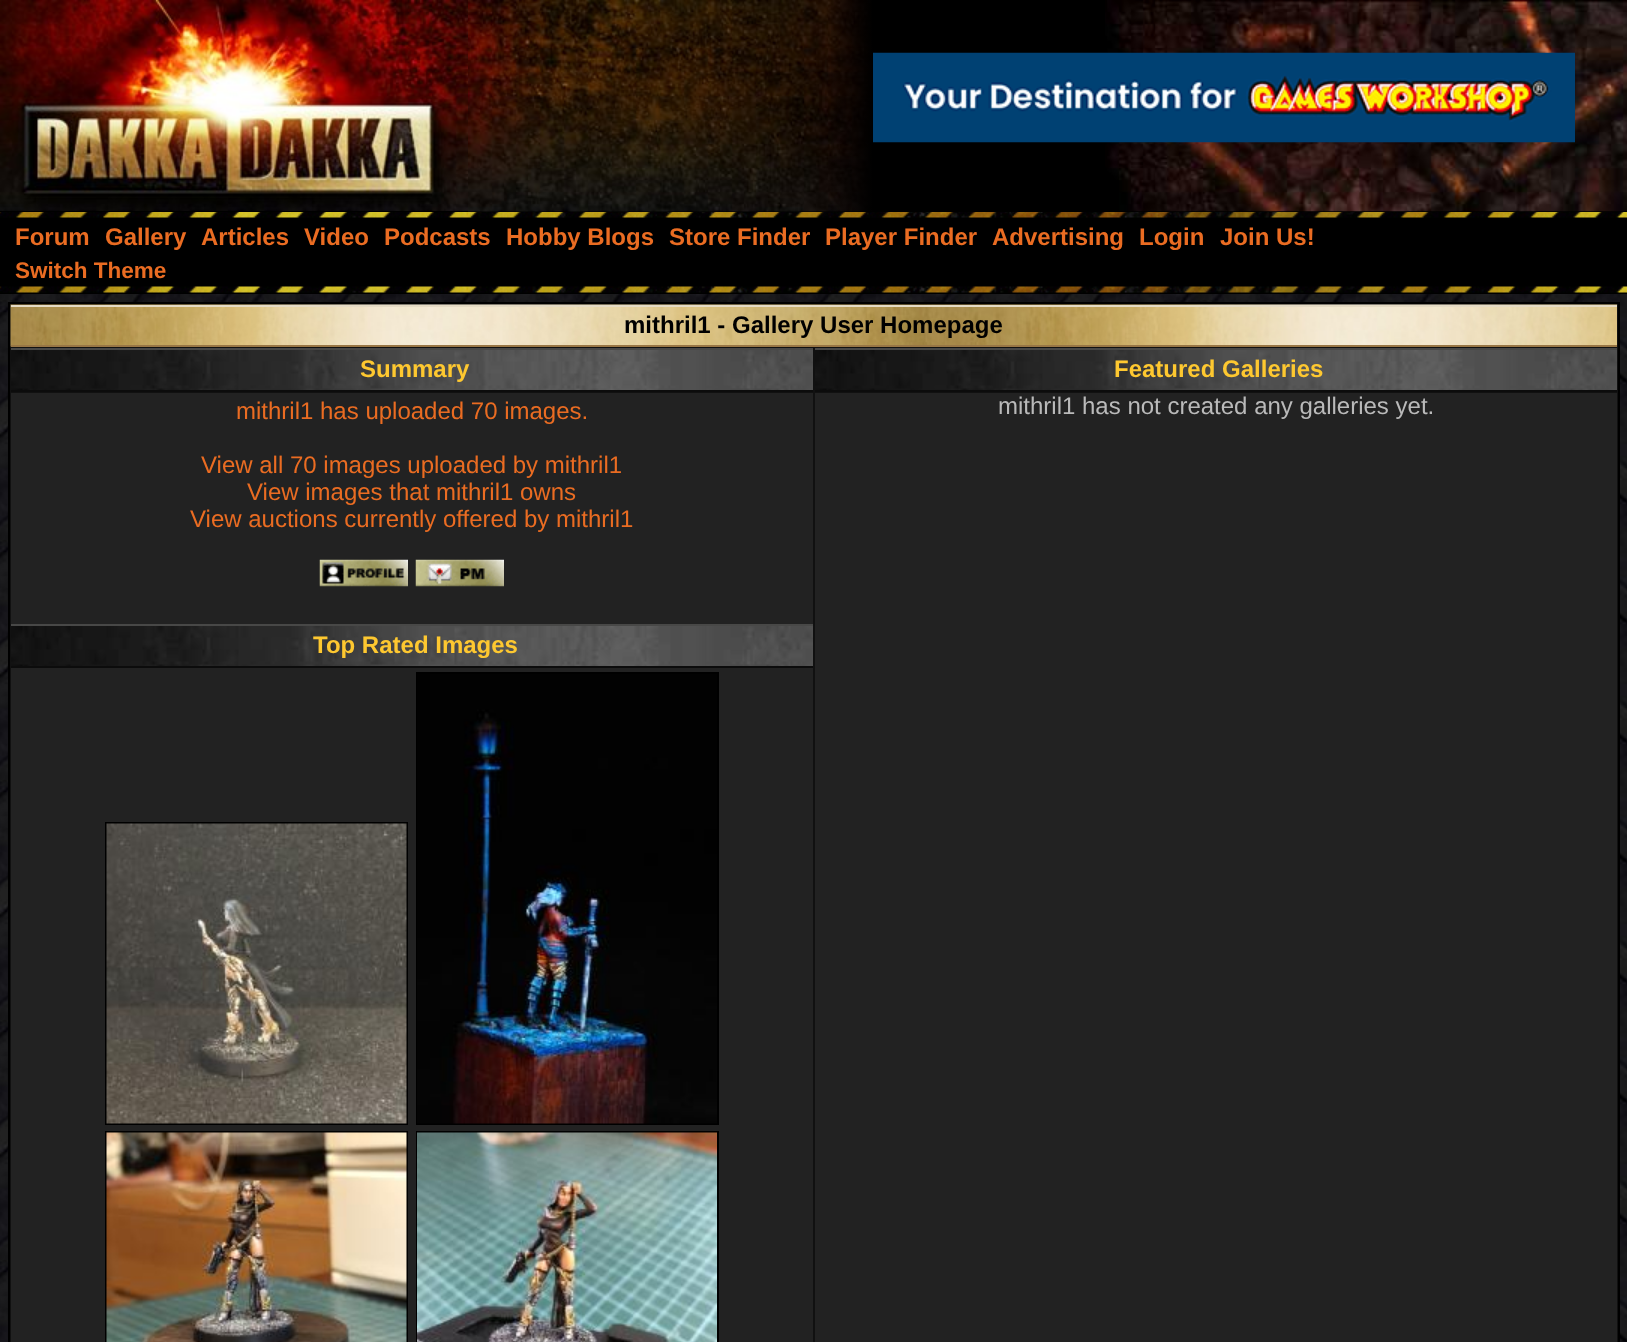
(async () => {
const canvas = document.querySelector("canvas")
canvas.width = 1627
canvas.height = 1342
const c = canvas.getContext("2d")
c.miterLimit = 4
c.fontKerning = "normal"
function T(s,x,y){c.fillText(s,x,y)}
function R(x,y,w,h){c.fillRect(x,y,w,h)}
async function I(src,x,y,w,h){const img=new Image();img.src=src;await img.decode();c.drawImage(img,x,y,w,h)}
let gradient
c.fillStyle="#fff"
R(0,0,1627,1342)
await I("1.png",0,294,1627,1048)
c.fillStyle="#000"
R(0,211,873,1)
await I("2.png",468,0,405,212)
await I("3.png",0,0,468,211)
gradient = c.createLinearGradient(828,106,873,106)
gradient.addColorStop(0,"#00000000")
gradient.addColorStop(1,"#000")
c.fillStyle = gradient
R(831,0,42,212)
c.fillStyle="#000"
R(873,0,754,212)
await I("4.png",1105,0,522,212)
await I("5.png",873,52,702,91)
R(0,218,1627,69)
await I("6.png",0,212,1627,6)
c.font="bold 24px Liberation Sans"
c.fillStyle="#ea6c22"
T("Forum",15,245)
T("Gallery",105,245)
T("Articles",201,245)
T("Video",304,245)
T("Podcasts",384,245)
T("Hobby Blogs",506,245)
T("Store Finder",669,245)
T("Player Finder",825,245)
T("Advertising",992,245)
T("Login",1139,245)
T("Join Us!",1220,245)
c.font="bold 22.5px Liberation Sans"
T("Switch Theme",15,278)
c.fillStyle="#000"
R(0,293,1627,1)
await I("7.png",0,286,1627,7)
c.fillStyle="#111"
c.beginPath()
c.rect(9,303,1610,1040)
c.fill()
c.strokeStyle="#000"
c.lineWidth=2
c.stroke()
await I("8.png",10,304,1607,43)
c.fillStyle="#e5dbc5"
R(11,305,1606,2)
c.fillStyle="#987645"
R(11,345,1606,2)
c.font="bold 24px Liberation Sans"
c.fillStyle="#000"
T("mithril1 - Gallery User Homepage",624,333)
await I("9.png",11,350,802,40)
c.fillStyle="#484847"
R(11,348,802,2)
c.fillStyle="#0c0c0c"
R(11,390,802,2)
c.fillStyle="#fec830"
T("Summary",360,377)
await I("10.png",815,350,802,40)
c.fillStyle="#484847"
R(815,348,802,2)
c.fillStyle="#0c0c0c"
R(815,390,802,2)
c.fillStyle="#fec830"
T("Featured Galleries",1114,377)
c.fillStyle="#222"
R(11,393,802,949)
c.font="24px Liberation Sans"
c.fillStyle="#ea6c22"
T("mithril1 has uploaded 70 images.",236,419)
T("View all 70 images uploaded by mithril1",201,473)
T("View images that mithril1 owns",247,500)
T("View auctions currently offered by mithril1",190,527)
await I("11.png",319,559,89,28)
await I("12.png",415,559,89,28)
await I("13.png",11,626,802,40)
c.fillStyle="#484847"
R(11,624,802,2)
c.fillStyle="#0c0c0c"
R(11,666,802,2)
c.font="bold 24px Liberation Sans"
c.fillStyle="#fec830"
T("Top Rated Images",313,653)
c.strokeRect(417,673,301,451)
c.strokeRect(106,823,301,301)
await I("14.png",417,674,300,450)
await I("15.png",106,823,301,301)
c.strokeRect(106,1132,301,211)
c.strokeRect(417,1132,301,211)
await I("16.png",106,1132,301,210)
await I("17.png",417,1132,300,210)
c.fillStyle="#222"
R(815,393,802,949)
c.font="24px Liberation Sans"
c.fillStyle="#bababa"
T("mithril1 has not created any galleries yet.",998,414)
})()
